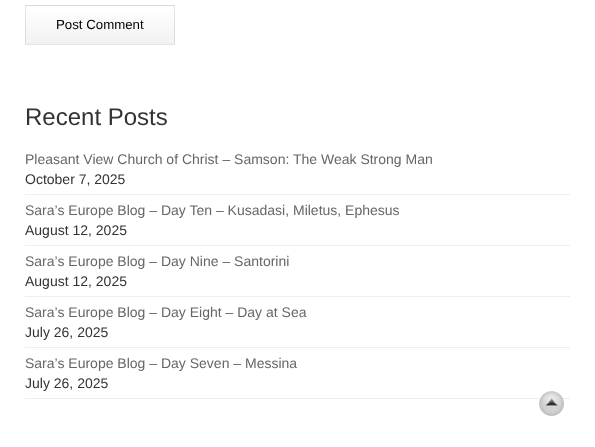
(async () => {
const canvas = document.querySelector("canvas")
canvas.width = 595
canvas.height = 447
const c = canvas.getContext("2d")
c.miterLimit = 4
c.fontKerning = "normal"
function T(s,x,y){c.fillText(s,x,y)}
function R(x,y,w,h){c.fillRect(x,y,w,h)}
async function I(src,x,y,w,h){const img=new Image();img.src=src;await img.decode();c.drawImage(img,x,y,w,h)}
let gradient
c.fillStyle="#fff"
R(0,0,595,447)
gradient = c.createLinearGradient(100,-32,100,6)
gradient.addColorStop(0,"#fff")
gradient.addColorStop(1,"#f2f2f2")
c.fillStyle = gradient
c.beginPath()
c.roundRect(25,5,150,1,[1,1,0,0])
c.fill()
gradient = c.createLinearGradient(100,6,100,44)
gradient.addColorStop(0,"#fff")
gradient.addColorStop(1,"#f2f2f2")
c.fillStyle = gradient
R(25,13,150,31)
c.strokeStyle="#0000001a"
c.strokeRect(25.5,5.5,149,39)
c.font="13.25px Liberation Sans"
c.fillStyle="#000"
T("Post Comment",56,29)
c.font="24px Liberation Sans"
c.fillStyle="#333"
T("Recent Posts",25,125)
c.fillStyle="#eee"
R(25,194,545,1)
c.font="14px Liberation Sans"
c.fillStyle="#666"
T("Pleasant View Church of Christ – Samson: The Weak Strong Man",25,164)
c.fillStyle="#333"
T("October 7, 2025",25,184)
c.fillStyle="#eee"
R(25,245,545,1)
c.fillStyle="#666"
T("Sara’s Europe Blog – Day Ten – Kusadasi, Miletus, Ephesus",25,215)
c.fillStyle="#333"
T("August 12, 2025",25,235)
c.fillStyle="#eee"
R(25,296,545,1)
c.fillStyle="#666"
T("Sara’s Europe Blog – Day Nine – Santorini",25,266)
c.fillStyle="#333"
T("August 12, 2025",25,286)
c.fillStyle="#eee"
R(25,347,545,1)
c.fillStyle="#666"
T("Sara’s Europe Blog – Day Eight – Day at Sea",25,317)
c.fillStyle="#333"
T("July 26, 2025",25,337)
c.fillStyle="#eee"
R(25,398,545,1)
c.fillStyle="#666"
T("Sara’s Europe Blog – Day Seven – Messina",25,368)
c.fillStyle="#333"
T("July 26, 2025",25,388)
await I("1.png",539,391,25,25)
})()
